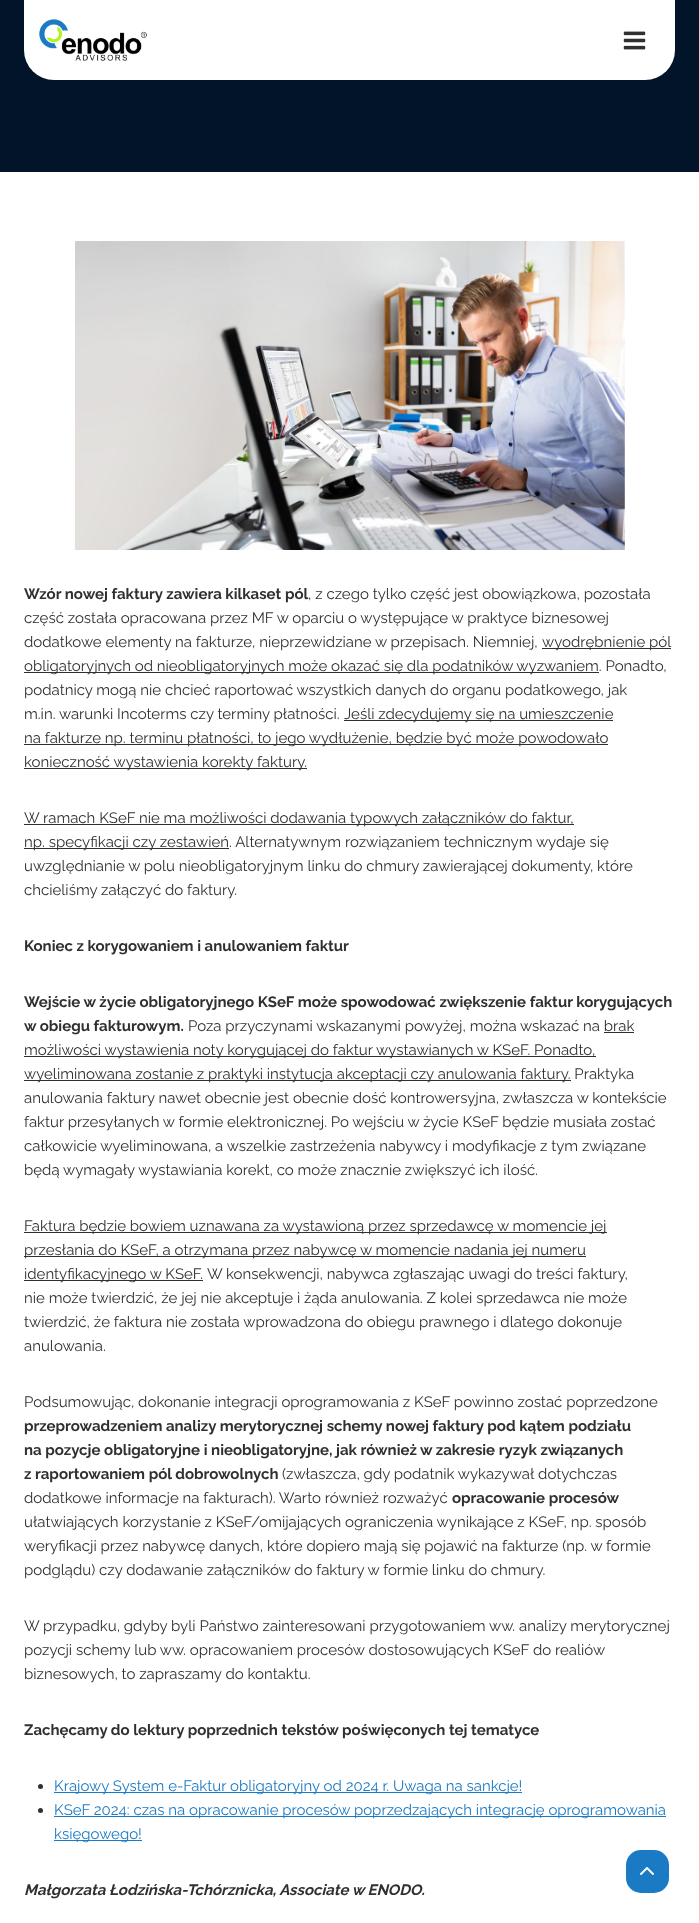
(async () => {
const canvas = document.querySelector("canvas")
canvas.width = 699
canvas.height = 1923
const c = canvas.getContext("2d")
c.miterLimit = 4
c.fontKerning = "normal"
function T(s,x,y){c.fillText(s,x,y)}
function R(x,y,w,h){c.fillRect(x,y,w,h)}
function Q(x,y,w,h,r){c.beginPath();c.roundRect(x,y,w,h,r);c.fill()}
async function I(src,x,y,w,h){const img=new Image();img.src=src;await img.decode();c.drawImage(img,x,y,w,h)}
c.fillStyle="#fff"
R(0,0,699,1923)
c.fillStyle="#021429"
R(0,0,699,172)
c.fillStyle="#fff"
c.beginPath()
c.roundRect(24,0,651,80,[0,0,30,30])
c.fill()
await I("1.png",39,19,108,42)
await I("2.png",623,31,23,19)
await I("3.png",75,241,550,309)
c.font="bold 15px Raleway"
c.fillStyle="#303030"
T("Wzór nowej faktury zawiera kilkaset pól",24,599)
c.font="15px Raleway"
T(", z czego tylko część jest obowiązkowa, pozostała",308,599)
T("część została opracowana przez MF w oparciu o występujące w praktyce biznesowej",24,623)
T("dodatkowe elementy na fakturze, nieprzewidziane w przepisach. Niemniej,",24,647)
R(542,648,129,1)
T("wyodrębnienie pól",542,647)
R(24,672,575,1)
T("obligatoryjnych od nieobligatoryjnych może okazać się dla podatników wyzwaniem. Ponadto,",24,671)
T("podatnicy mogą nie chcieć raportować wszystkich danych do organu podatkowego, jak",24,695)
T("m.in. warunki Incoterms czy terminy płatności.",24,719)
R(344,720,269,1)
T("Jeśli zdecydujemy się na umieszczenie",344,719)
R(24,744,584,1)
T("na fakturze np. terminu płatności, to jego wydłużenie, będzie być może powodowało",24,743)
R(24,768,283,1)
T("konieczność wystawienia korekty faktury.",24,767)
R(24,824,550,1)
T("W ramach KSeF nie ma możliwości dodawania typowych załączników do faktur,",24,823)
R(24,848,205,1)
T("np. specyfikacji czy zestawień. Alternatywnym rozwiązaniem technicznym wydaje się",24,847)
T("uwzględnianie w polu nieobligatoryjnym linku do chmury zawierającej dokumenty, które",24,871)
T("chcieliśmy załączyć do faktury.",24,895)
c.font="bold 15px Raleway"
T("Koniec z korygowaniem i anulowaniem faktur",24,951)
T("Wejście w życie obligatoryjnego KSeF może spowodować zwiększenie faktur korygujących",24,1007)
T("w obiegu fakturowym.",24,1031)
c.font="15px Raleway"
T("Poza przyczynami wskazanymi powyżej, można wskazać na brak",188,1031)
R(24,1056,572,1)
T("możliwości wystawienia noty korygującej do faktur wystawianych w KSeF. Ponadto,",24,1055)
R(604,1032,30,1)
R(24,1080,547,1)
T("wyeliminowana zostanie z praktyki instytucja akceptacji czy anulowania faktury. Praktyka",24,1079)
T("anulowania faktury nawet obecnie jest obecnie dość kontrowersyjna, zwłaszcza w kontekście",24,1103)
T("faktur przesyłanych w formie elektronicznej. Po wejściu w życie KSeF będzie musiała zostać",24,1127)
T("całkowicie wyeliminowana, a wszelkie zastrzeżenia nabywcy i modyfikacje z tym związane",24,1151)
T("będą wymagały wystawiania korekt, co może znacznie zwiększyć ich ilość.",24,1175)
R(24,1232,583,1)
T("Faktura będzie bowiem uznawana za wystawioną przez sprzedawcę w momencie jej",24,1231)
R(24,1256,562,1)
T("przesłania do KSeF, a otrzymana przez nabywcę w momencie nadania jej numeru",24,1255)
R(24,1280,179,1)
T("identyfikacyjnego w KSeF.",24,1279)
T("W konsekwencji, nabywca zgłaszając uwagi do treści faktury,",207,1279)
T("nie może twierdzić, że jej nie akceptuje i żąda anulowania. Z kolei sprzedawca nie może",24,1303)
T("twierdzić, że faktura nie została wprowadzona do obiegu prawnego i dlatego dokonuje",24,1327)
T("anulowania.",24,1351)
T("Podsumowując, dokonanie integracji oprogramowania z KSeF powinno zostać poprzedzone",24,1407)
c.font="bold 15px Raleway"
T("przeprowadzeniem analizy merytorycznej schemy nowej faktury pod kątem podziału",24,1431)
T("na pozycje obligatoryjne i nieobligatoryjne, jak również w zakresie ryzyk związanych",24,1455)
T("z raportowaniem pól dobrowolnych",24,1479)
c.font="15px Raleway"
T("(zwłaszcza, gdy podatnik wykazywał dotychczas",282,1479)
T("dodatkowe informacje na fakturach). Warto również rozważyć",24,1503)
c.font="bold 15px Raleway"
T("opracowanie procesów",452,1503)
c.font="15px Raleway"
T("ułatwiających korzystanie z KSeF/omijających ograniczenia wynikające z KSeF, np. sposób",24,1527)
T("weryfikacji przez nabywcę danych, które dopiero mają się pojawić na fakturze (np. w formie",24,1551)
T("podglądu) czy dodawanie załączników do faktury w formie linku do chmury.",24,1575)
T("W przypadku, gdyby byli Państwo zainteresowani przygotowaniem ww. analizy merytorycznej",24,1631)
T("pozycji schemy lub ww. opracowaniem procesów dostosowujących KSeF do realiów",24,1655)
T("biznesowych, to zapraszamy do kontaktu.",24,1679)
c.font="bold 15px Raleway"
T("Zachęcamy do lektury poprzednich tekstów poświęconych tej tematyce",24,1735)
c.beginPath()
c.arc(40.5,1786.5,2.5,0,7)
c.fill()
c.fillStyle="#1b7ac4"
R(54,1792,468,1)
c.font="15px Raleway"
T("Krajowy System e-Faktur obligatoryjny od 2024 r. Uwaga na sankcje!",54,1791)
c.fillStyle="#303030"
c.beginPath()
c.arc(40.5,1810.5,2.5,0,7)
c.fill()
c.fillStyle="#1b7ac4"
R(54,1816,612,1)
T("KSeF 2024: czas na opracowanie procesów poprzedzających integrację oprogramowania",54,1815)
R(54,1840,88,1)
T("księgowego!",54,1839)
c.font="italic bold 15px Raleway"
c.fillStyle="#303030"
T("Małgorzata Łodzińska-Tchórznicka, Associate w ENODO.",24,1895)
c.fillStyle="#1b7ac4"
Q(626,1850,43,43,15)
await I("4.png",640,1867,14,8)
})()
